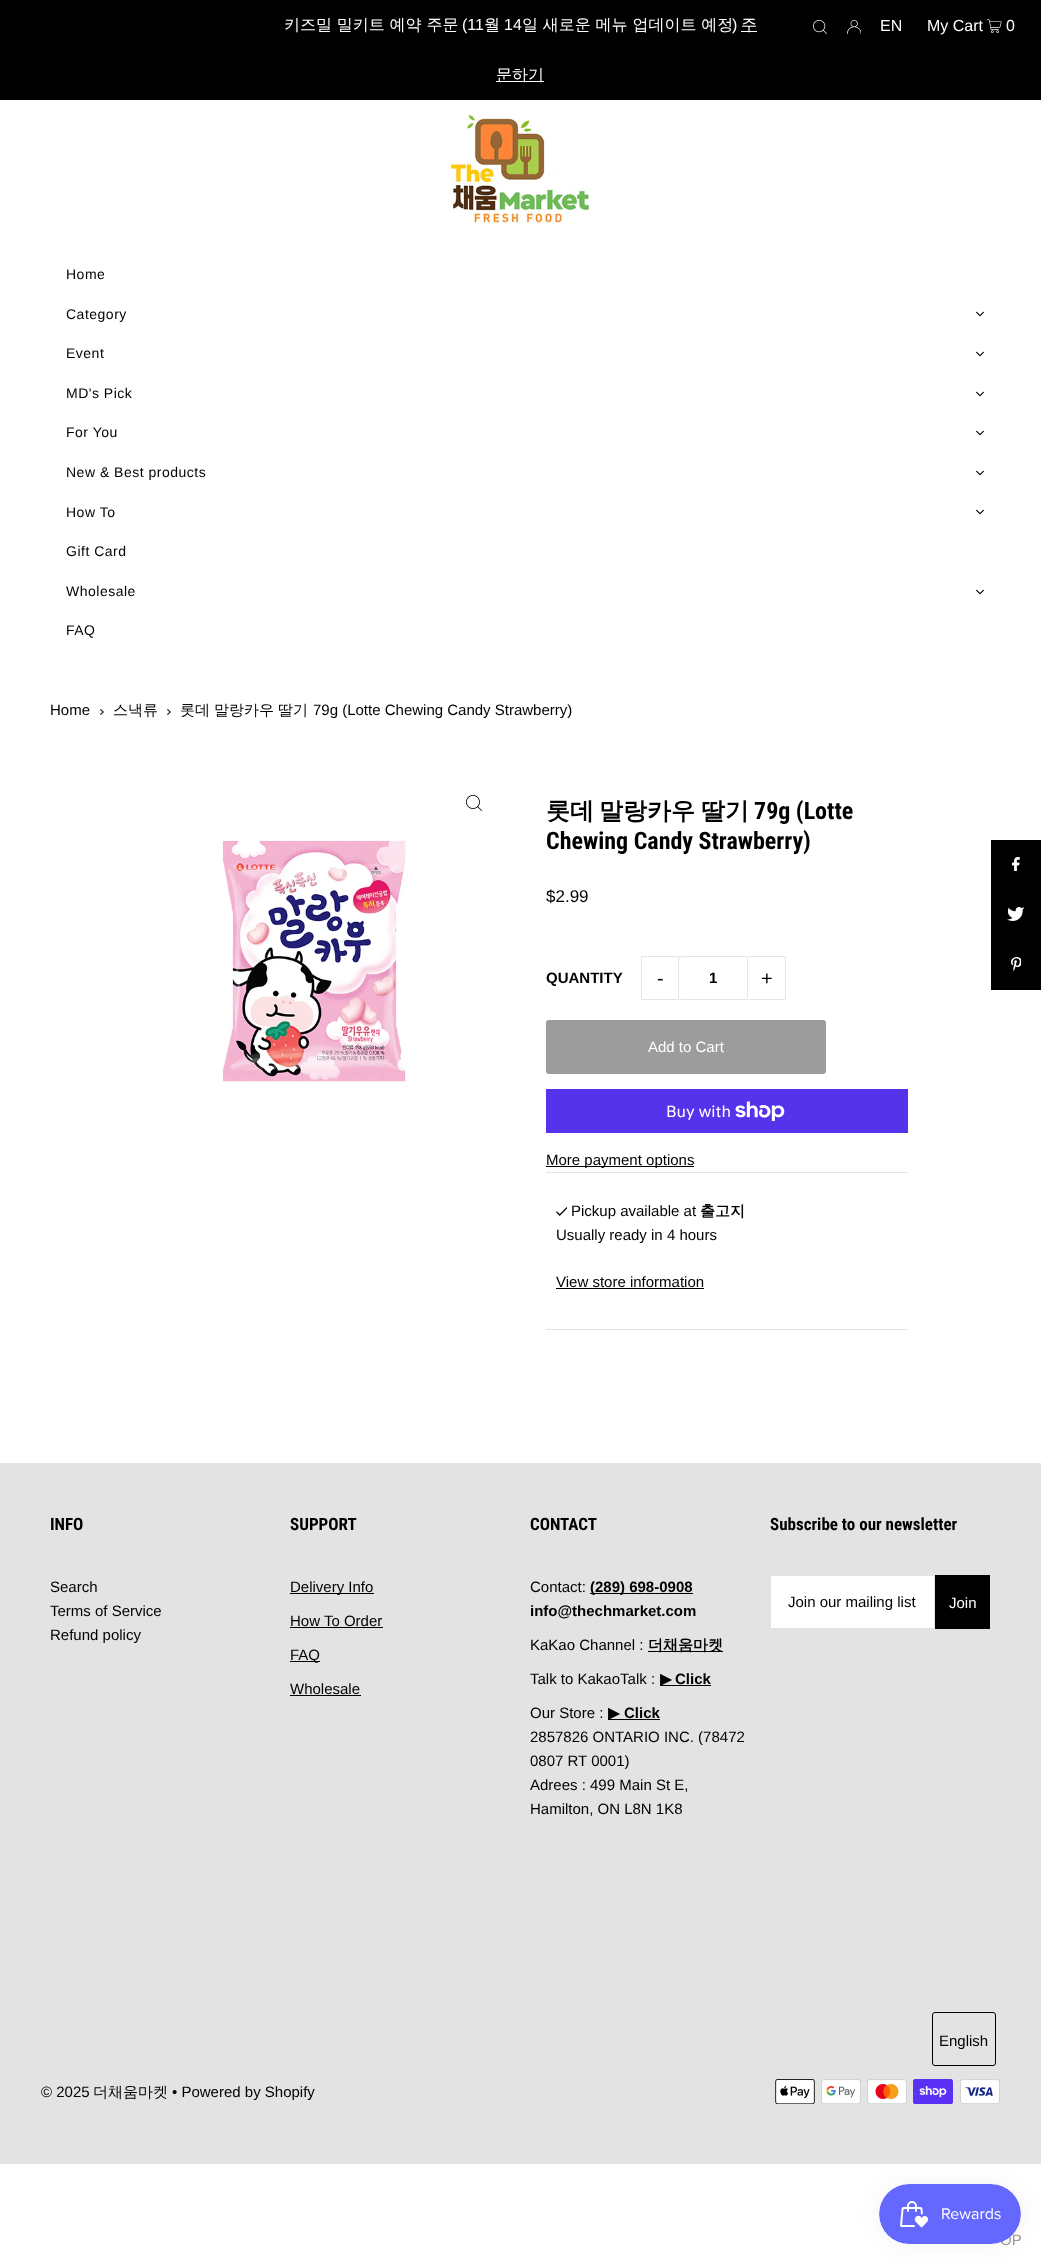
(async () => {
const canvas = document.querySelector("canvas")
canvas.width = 1041
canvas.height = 2264
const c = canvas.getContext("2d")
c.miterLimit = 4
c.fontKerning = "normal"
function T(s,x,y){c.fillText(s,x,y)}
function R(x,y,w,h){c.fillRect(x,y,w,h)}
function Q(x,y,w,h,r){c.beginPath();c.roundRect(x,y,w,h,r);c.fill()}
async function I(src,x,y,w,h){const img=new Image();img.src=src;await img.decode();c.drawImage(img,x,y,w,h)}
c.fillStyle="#fff"
R(0,0,1041,2264)
c.fillStyle="#000"
R(0,0,1041,100)
c.font="500 16px WenQuanYi Zen Hei"
c.fillStyle="#fff"
T("키즈밀 밀키트 예약 주문",284,30)
c.font="16px Liberation Sans"
T("(11",462,30)
c.font="500 16px WenQuanYi Zen Hei"
T("월",484,30)
c.font="16px Liberation Sans"
T("14",504,30)
c.font="500 16px WenQuanYi Zen Hei"
T("일 새로운 메뉴 업데이트 예정",522,30)
c.font="16px Liberation Sans"
T(")",732,30)
R(741,31,16,1)
c.font="500 16px WenQuanYi Zen Hei"
T("주",741,30)
R(496,81,48,1)
T("문하기",496,80)
await I("1.png",813,20,14,14)
await I("2.png",847,20,14,14)
c.font="16px Liberation Sans"
T("EN",880,31)
T("My Cart",927,31)
await I("3.png",987,19,15,14)
T("0",1006,31)
await I("4.png",449,114,142,109)
c.letterSpacing="0.5px"
c.font="14px Liberation Sans"
c.fillStyle="#000"
T("Home",66,279)
T("Category",66,319)
await I("5.png",976,311,8,6)
T("Event",66,358)
await I("5.png",976,351,8,6)
T("MD's Pick",66,398)
await I("5.png",976,391,8,6)
T("For You",66,437)
await I("5.png",976,430,8,6)
T("New & Best products",66,477)
await I("5.png",976,470,8,6)
T("How To",66,517)
await I("5.png",976,509,8,6)
T("Gift Card",66,556)
T("Wholesale",66,596)
await I("5.png",976,589,8,6)
T("FAQ",66,635)
c.letterSpacing="0px"
c.font="15px Liberation Sans"
T("Home",50,715)
await I("6.png",100,709,4,6)
c.font="500 15px WenQuanYi Zen Hei"
T("스낵류",113,715)
await I("6.png",167,709,4,6)
T("롯데",180,715)
T("말랑카우",214,715)
T("딸기",278,715)
c.font="15px Liberation Sans"
T("79g (Lotte Chewing Candy Strawberry)",313,715)
await I("7.png",466,795,16,16)
await I("8.png",221,840,187,246)
c.font="bold 24px WenQuanYi Zen Hei"
T("롯데",546,819)
T("말랑카우",599,819)
T("딸기",701,819)
c.font="bold 24px Roboto Condensed"
T("79g (Lotte",754,819)
T("Chewing Candy Strawberry)",546,849)
c.font="17px Liberation Sans"
T("$2.99",546,902)
c.fillStyle="#e5e5e5"
R(546,1172,362,1)
c.font="bold 15px Liberation Sans"
c.fillStyle="#000"
T("QUANTITY",546,983)
c.fillStyle="#e5e5e5"
R(641,956,38,1)
R(641,999,38,1)
R(641,956,1,44)
c.font="20px Liberation Sans"
c.fillStyle="#000"
T("-",657,985)
c.beginPath()
c.roundRect(678.5,956.5,69,43,2.5)
c.strokeStyle="#e5e5e5"
c.stroke()
c.font="bold 15px Liberation Sans"
T("1",709,983)
c.fillStyle="#e5e5e5"
R(748,956,38,1)
R(785,956,1,44)
R(748,999,38,1)
c.font="20px Liberation Sans"
c.fillStyle="#000"
T("+",761,985)
c.fillStyle="#9c9c9c"
Q(546,1020,280,54,3)
c.font="15px Liberation Sans"
c.fillStyle="#fff"
T("Add to Cart",648,1052)
c.fillStyle="#5433eb"
R(546,1089,362,44)
c.font="16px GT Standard"
c.fillStyle="#fff"
T("Buy with",666,1117)
await I("9.png",735,1101,50,20)
c.fillStyle="#000"
R(546,1166,148,1)
c.font="15px Liberation Sans"
T("More payment options",546,1165)
c.fillStyle="#e5e5e5"
R(546,1329,362,1)
await I("10.png",556,1207,11,9)
c.fillStyle="#000"
T("Pickup available at",571,1216)
c.font="bold 15px WenQuanYi Zen Hei"
T("출고지",700,1216)
c.font="15px Liberation Sans"
T("Usually ready in 4 hours",556,1240)
T("View store information",556,1287)
R(556,1288,148,1)
R(991,840,50,150)
await I("11.png",1012,857,8,14)
await I("12.png",1007,907,17,14)
await I("13.png",1011,957,10,14)
c.fillStyle="#e3e3e3"
R(0,1464,1041,700)
c.fillStyle="#e5e5e5"
R(0,1463,1041,1)
c.font="bold 17px Roboto Condensed"
c.fillStyle="#000"
T("INFO",50,1530)
c.font="15px Liberation Sans"
T("Search",50,1592)
T("Terms of Service",50,1616)
T("Refund policy",50,1640)
c.font="bold 17px Roboto Condensed"
T("SUPPORT",290,1530)
R(290,1593,84,1)
c.font="15px Liberation Sans"
T("Delivery Info",290,1592)
T("How To Order",290,1626)
R(290,1627,93,1)
R(290,1661,30,1)
T("FAQ",290,1660)
T("Wholesale",290,1694)
R(290,1695,71,1)
c.font="bold 17px Roboto Condensed"
T("CONTACT",530,1530)
c.font="15px Liberation Sans"
T("Contact:",530,1592)
R(590,1593,103,1)
c.font="bold 15px Liberation Sans"
T("(289) 698-0908",590,1592)
T("info@thechmarket.com",530,1616)
c.font="15px Liberation Sans"
T("KaKao Channel :",530,1650)
R(648,1651,75,1)
c.font="bold 15px WenQuanYi Zen Hei"
T("더채움마켓",648,1650)
c.font="15px Liberation Sans"
T("Talk to KakaoTalk :",530,1684)
R(660,1685,51,1)
c.font="bold 15px DejaVu Sans"
T("▶",660,1684)
c.font="bold 15px Liberation Sans"
T("Click",675,1684)
c.font="15px Liberation Sans"
T("Our Store :",530,1718)
R(608,1719,52,1)
c.font="bold 15px DejaVu Sans"
T("▶",608,1718)
c.font="bold 15px Liberation Sans"
T("Click",624,1718)
c.font="15px Liberation Sans"
T("2857826 ONTARIO INC. (78472",530,1742)
T("0807 RT 0001)",530,1766)
T("Adrees : 499 Main St E,",530,1790)
T("Hamilton, ON L8N 1K8",530,1814)
c.font="bold 17px Roboto Condensed"
T("Subscribe to our newsletter",770,1530)
c.fillStyle="#fff"
R(771,1576,163,52)
c.font="15px Liberation Sans"
c.fillStyle="#000"
T("Join our mailing list",788,1607)
R(935,1575,55,54)
c.fillStyle="#fff"
T("Join",949,1608)
c.beginPath()
c.roundRect(932.5,2012.5,63,53,2.5)
c.strokeStyle="#000"
c.stroke()
c.fillStyle="#000"
T("English",939,2046)
await I("14.png",775,2079,40,25)
await I("15.png",821,2079,40,25)
await I("16.png",867,2079,40,25)
await I("17.png",913,2079,40,25)
await I("18.png",960,2079,40,25)
T("© 2025",41,2097)
c.font="500 15px WenQuanYi Zen Hei"
T("더채움마켓",93,2097)
c.font="15px Liberation Sans"
T("• Powered by Shopify",172,2097)
c.fillStyle="#0000000d"
c.filter="blur(12.5px)"
c.beginPath()
c.roundRect(879,2184,142,60,30)
c.fill()
c.filter="none"
c.fillStyle="#999"
T("OP",1000,2245)
await I("19.png",879,2184,142,60)
})()
